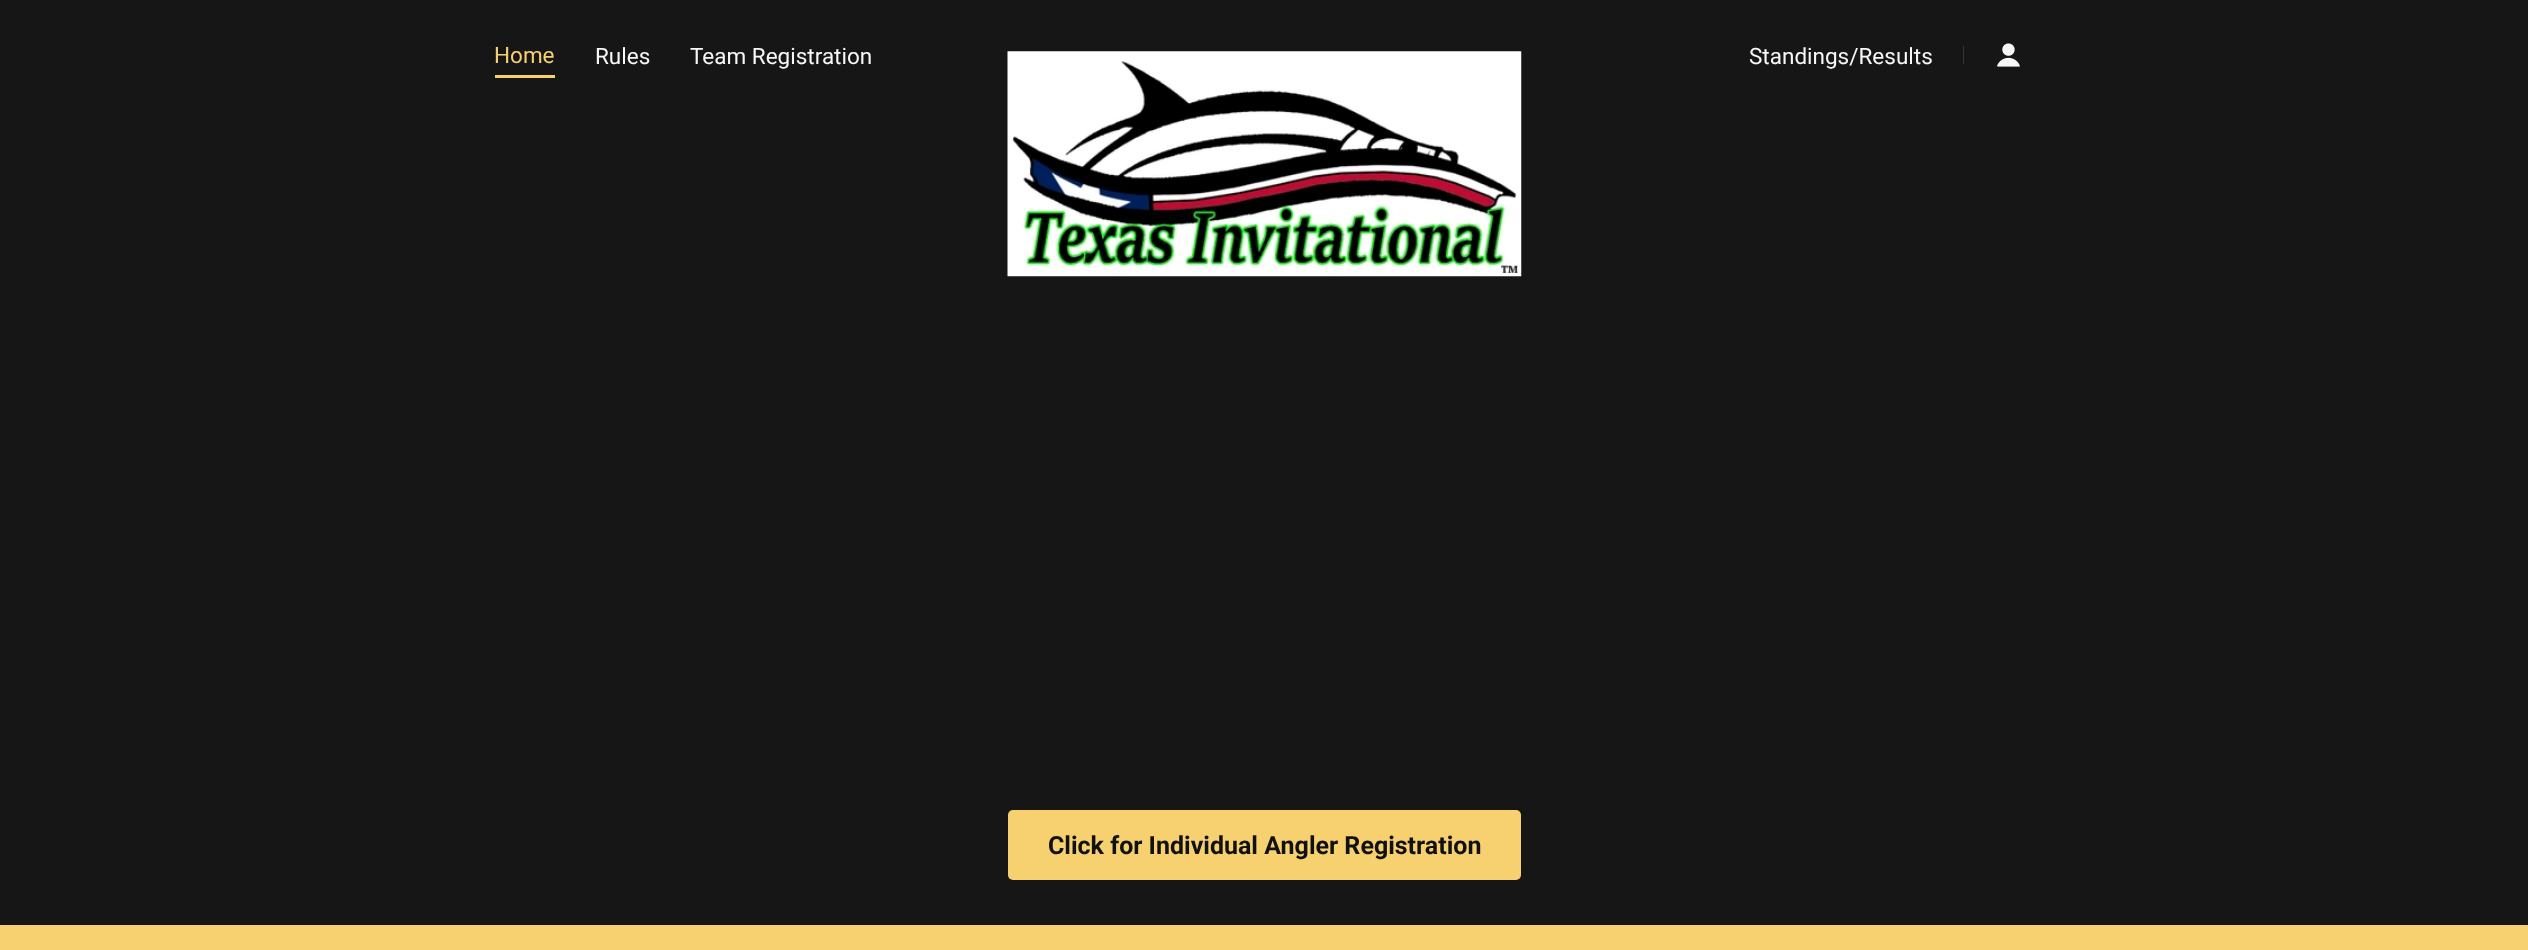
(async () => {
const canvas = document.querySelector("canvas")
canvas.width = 2528
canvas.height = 950
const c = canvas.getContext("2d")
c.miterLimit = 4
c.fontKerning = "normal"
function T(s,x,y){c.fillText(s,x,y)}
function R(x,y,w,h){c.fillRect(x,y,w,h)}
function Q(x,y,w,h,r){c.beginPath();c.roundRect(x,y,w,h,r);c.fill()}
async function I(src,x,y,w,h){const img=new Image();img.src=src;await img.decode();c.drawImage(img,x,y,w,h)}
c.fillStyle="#161616"
R(0,0,2528,950)
c.fillStyle="#f7d170"
R(495,75,60,3)
c.font="22.5px Roboto"
T("Home",494,63)
c.fillStyle="#f7f7f7"
T("Rules",595,64)
T("Team Registration",690,64)
await I("1.png",1007,51,515,226)
T("Standings/Results",1749,64)
c.fillStyle="#353535"
R(1963,46,1,18)
await I("2.png",1997,43,23,24)
c.fillStyle="#f7d170"
Q(1008,810,513,70,5)
c.font="bold 25px Roboto"
c.fillStyle="#121111"
T("Click for Individual Angler Registration",1048,854)
c.fillStyle="#f7d170"
R(0,925,2528,25)
})()
